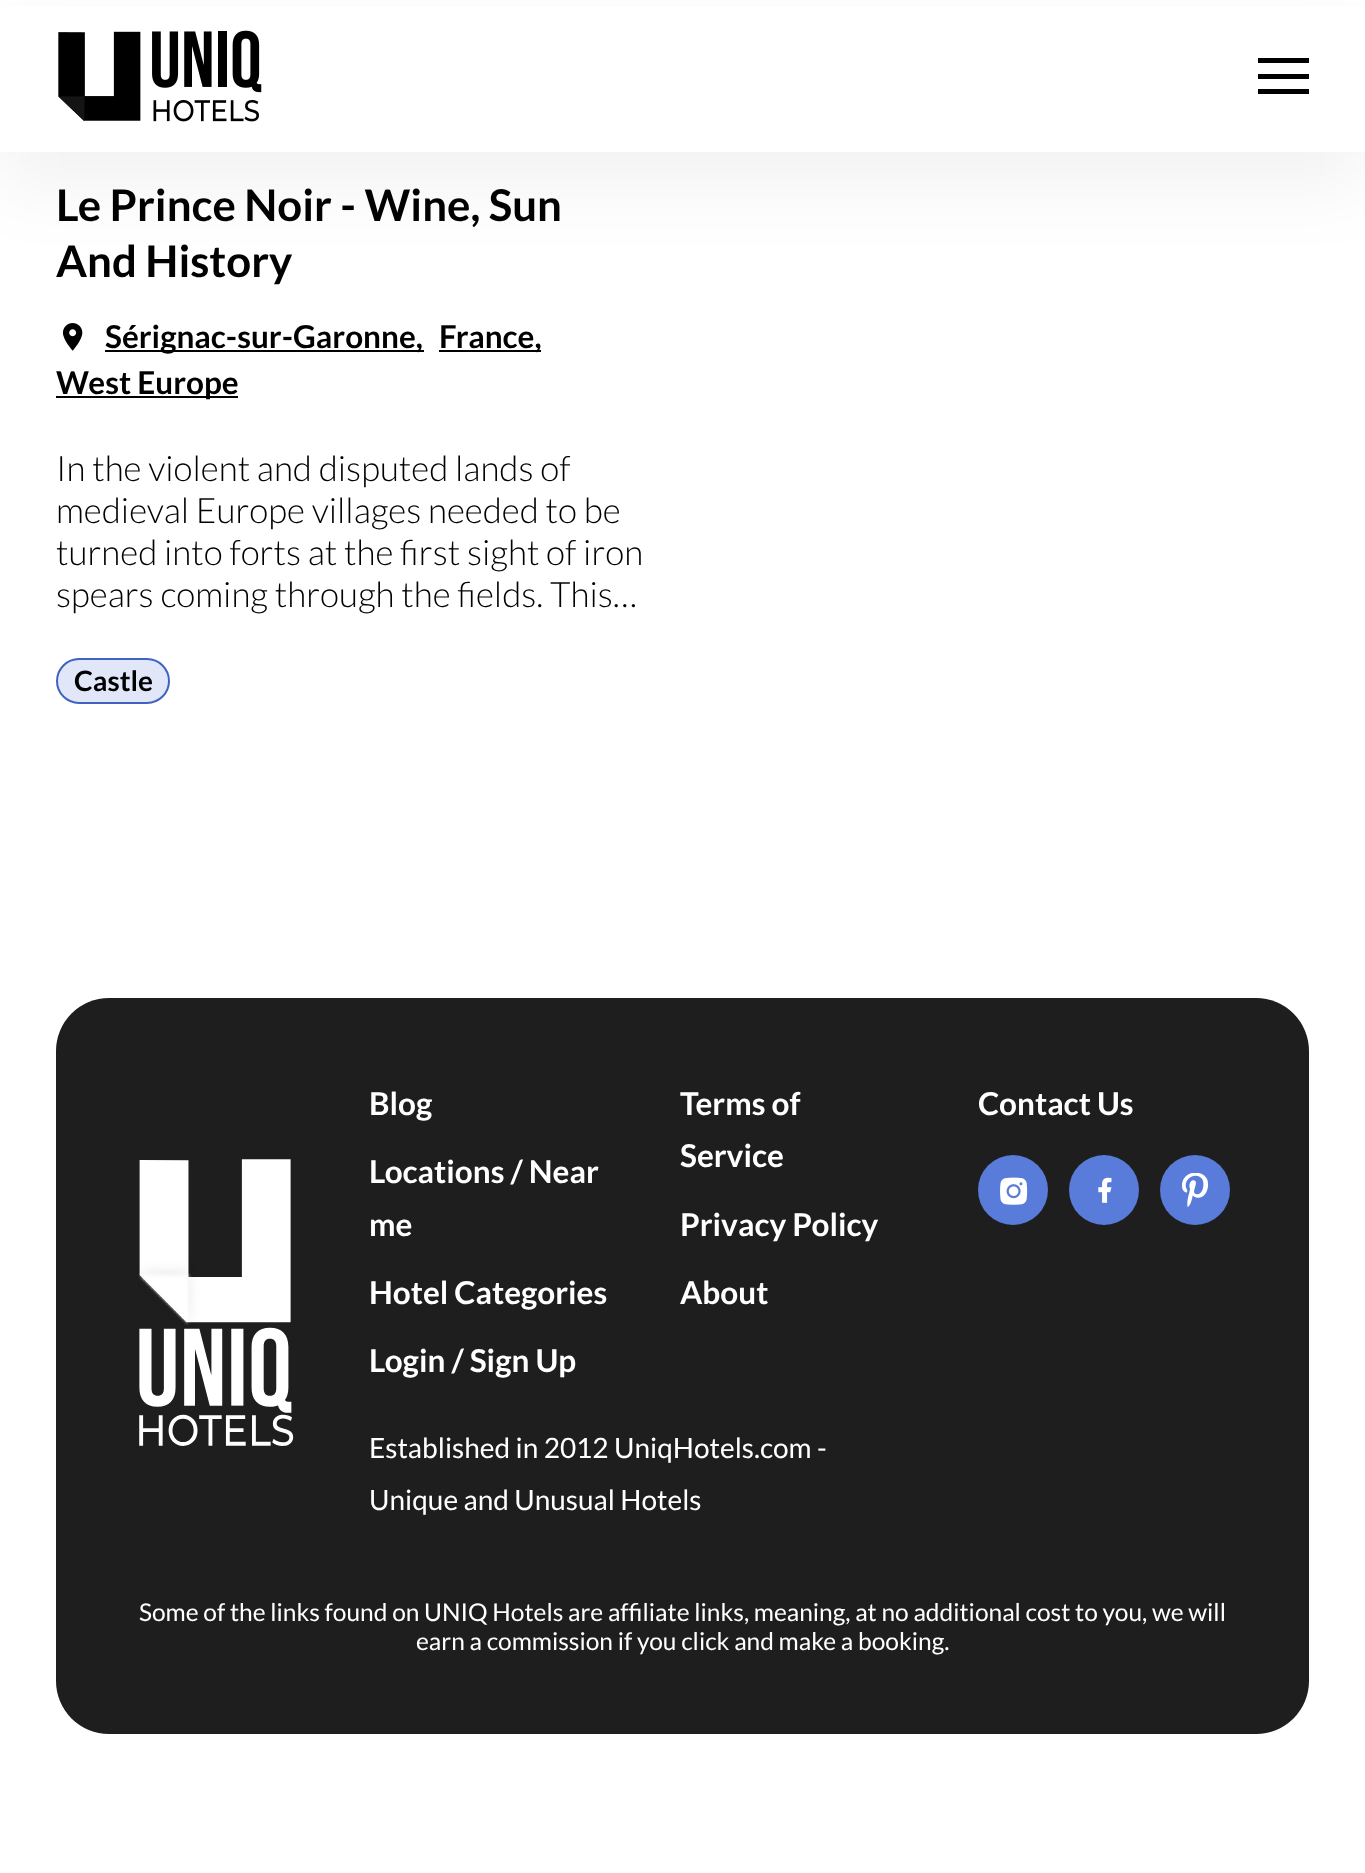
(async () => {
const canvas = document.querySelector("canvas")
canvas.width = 1365
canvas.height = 1873
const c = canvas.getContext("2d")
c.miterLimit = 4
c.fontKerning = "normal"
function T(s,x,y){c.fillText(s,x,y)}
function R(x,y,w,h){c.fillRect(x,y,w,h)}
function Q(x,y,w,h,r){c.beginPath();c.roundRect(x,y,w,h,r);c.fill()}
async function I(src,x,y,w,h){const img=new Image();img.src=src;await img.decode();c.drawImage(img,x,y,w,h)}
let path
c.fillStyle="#fff"
R(0,0,1365,1873)
c.fillStyle="#0000000d"
c.filter="blur(35px)"
c.beginPath()
c.rect(0,35,1365,152)
c.fill()
c.filter="none"
c.fillStyle="#fff"
R(0,6,1365,146)
await I("1.png",58,30,204,92)
c.fillStyle="#000"
path = new Path2D("M1258 58h51v5h-51zm0 16h51v5h-51zm0 15h51v5h-51z")
c.fill(path)
c.font="bold 43.75px Lato"
c.fillStyle="#010101"
T("Le Prince Noir - Wine, Sun",56,221)
T("And History",56,277)
await I("2.png",62,323,21,28)
c.fillStyle="#000"
R(105,350,319,2)
c.font="bold 31.5px Lato"
c.fillStyle="#010101"
T("Sérignac-sur-Garonne,",105,348)
c.fillStyle="#000"
R(439,350,102,2)
c.fillStyle="#010101"
T("France,",439,348)
c.fillStyle="#000"
R(56,396,182,2)
c.fillStyle="#010101"
T("West Europe",56,394)
c.font="300 35px Lato"
T("In the violent and disputed lands of",56,481)
T("medieval Europe villages needed to be",56,523)
T("turned into forts at the first sight of iron",56,565)
T("spears coming through the fields. This…",56,607)
c.fillStyle="#e1e7f8"
c.beginPath()
c.roundRect(57,659,112,44,22)
c.fill()
c.strokeStyle="#4063c1"
c.lineWidth=2
c.stroke()
c.font="bold 28px Lato"
c.fillStyle="#010101"
T("Castle",74,691)
c.fillStyle="#1e1e1e"
Q(56,998,1253,736,53)
c.font="bold 31.5px Lato"
c.fillStyle="#fff"
T("Blog",369,1115)
T("Locations / Near",369,1183)
T("me",369,1236)
T("Hotel Categories",369,1304)
T("Login / Sign Up",369,1372)
T("Terms of",680,1115)
T("Service",680,1167)
T("Privacy Policy",680,1236)
T("About",680,1304)
c.font="28px Lato"
T("Established in 2012 UniqHotels.com -",369,1458)
T("Unique and Unusual Hotels",369,1510)
c.font="bold 31.5px Lato"
T("Contact Us",978,1115)
c.fillStyle="#597bd9"
c.beginPath()
c.arc(1013,1190,35,0,7)
c.fill()
await I("3.png",1000,1177,28,28)
c.beginPath()
c.arc(1104,1190,35,0,7)
c.fill()
await I("4.png",1098,1177,14,26)
c.beginPath()
c.arc(1195,1190,35,0,7)
c.fill()
await I("5.png",1181,1173,28,35)
await I("6.png",138,1159,156,287)
c.font="24.5px Lato"
c.fillStyle="#fff"
T("Some of the links found on UNIQ Hotels are affiliate links, meaning, at no additional cost to you, we will",139,1621)
T("earn a commission if you click and make a booking.",416,1650)
})()
